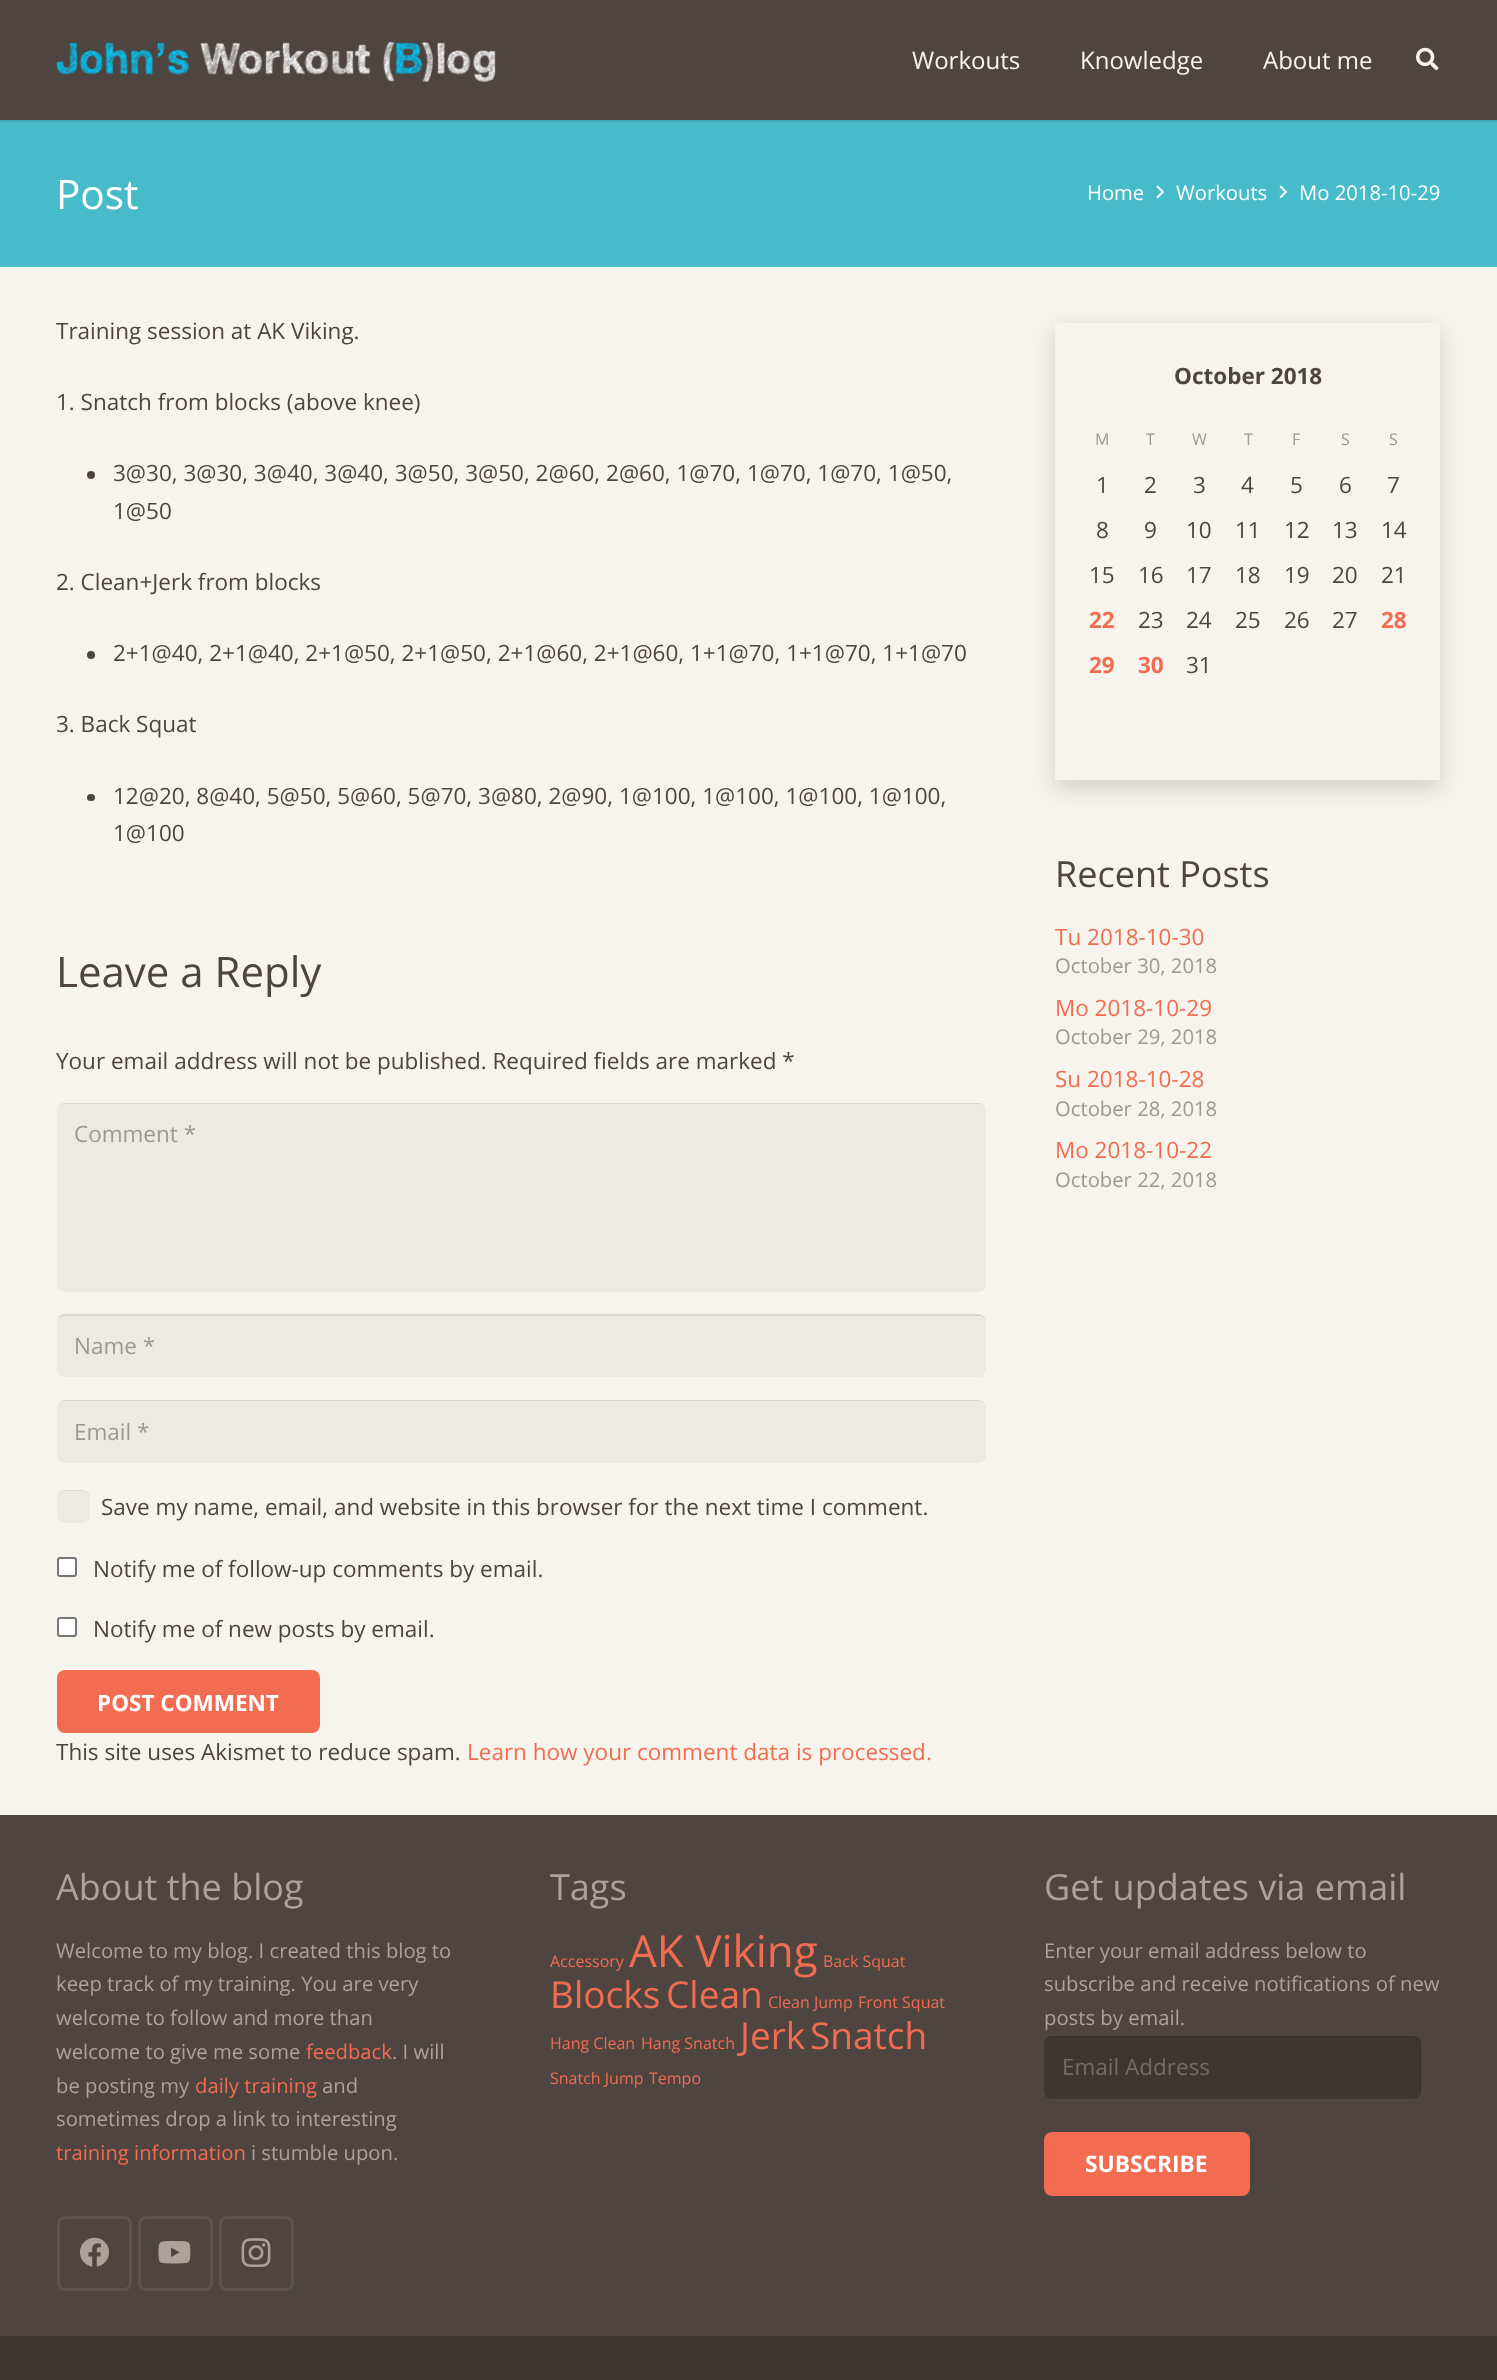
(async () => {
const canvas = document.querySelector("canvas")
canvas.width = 1497
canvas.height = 2380
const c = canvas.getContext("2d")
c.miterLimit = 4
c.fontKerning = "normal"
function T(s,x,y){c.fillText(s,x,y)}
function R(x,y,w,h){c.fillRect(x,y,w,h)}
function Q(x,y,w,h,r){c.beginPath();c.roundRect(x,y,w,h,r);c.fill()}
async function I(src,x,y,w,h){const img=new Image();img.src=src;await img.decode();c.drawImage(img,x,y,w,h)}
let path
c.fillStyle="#f7f4ed"
R(0,0,1497,2380)
c.fillStyle="#41acba"
R(0,120,1497,2)
c.fillStyle="#4e4540"
R(0,0,1497,120)
await I("1.png",56,41,440,41)
c.font="24px Open Sans"
c.fillStyle="#f7f4ed"
T("Workouts",912,69)
T("Knowledge",1080,69)
T("About me",1263,69)
await I("2.png",1416,47,23,24)
c.fillStyle="#47bbca"
R(0,122,1497,145)
c.font="40.5px Open Sans"
c.fillStyle="#fff"
T("Post",56,209)
c.font="20.25px Open Sans"
T("Home",1087,200)
await I("3.png",1156,185,9,14)
T("Workouts",1176,200)
await I("3.png",1279,185,9,14)
T("Mo 2018-10-29",1299,200)
c.font="22.5px Open Sans"
c.fillStyle="#4e4540"
T("Training session at AK Viking.",56,339)
T("1. Snatch from blocks (above knee)",56,410)
c.beginPath()
c.arc(91,475,4,0,7)
c.fill()
T("3@30, 3@30, 3@40, 3@40, 3@50, 3@50, 2@60, 2@60, 1@70, 1@70, 1@70, 1@50,",113,481)
T("1@50",113,519)
T("2. Clean+Jerk from blocks",56,590)
c.beginPath()
c.arc(91,655,4,0,7)
c.fill()
T("2+1@40, 2+1@40, 2+1@50, 2+1@50, 2+1@60, 2+1@60, 1+1@70, 1+1@70, 1+1@70",113,661)
T("3. Back Squat",56,732)
Q(87,794,8,7,3.5)
T("12@20, 8@40, 5@50, 5@60, 5@70, 3@80, 2@90, 1@100, 1@100, 1@100, 1@100,",113,804)
T("1@100",113,841)
c.font="42px Open Sans"
T("Leave a Reply",56,987)
c.font="22.5px Open Sans"
T("Your email address will not be published. Required fields are marked *",56,1069)
c.fillStyle="#edeae4"
Q(57,1103,929,189,8)
c.fillStyle="#dad7d2"
path = new Path2D("M64 1104h915c3 0 7 3 7 7c0-4-4-8-8-8h-913c-4 0-8 4-8 8c0-4 3-7 7-7z")
c.fill(path)
c.fillStyle="#9e9892"
T("Comment *",74,1142)
c.fillStyle="#edeae4"
Q(57,1314,929,63,8)
c.fillStyle="#dad7d2"
path = new Path2D("M64 1316h915c3 0 7 3 7 6c0-4-4-8-8-8h-913c-4 0-8 4-8 8c0-3 3-6 7-6z")
c.fill(path)
c.fillStyle="#9e9892"
T("Name *",74,1354)
c.fillStyle="#edeae4"
Q(57,1400,929,63,8)
c.fillStyle="#dad7d2"
path = new Path2D("M64 1401h915c3 0 7 3 7 7c0-4-4-8-8-8h-913c-4 0-8 4-8 8c0-4 3-7 7-7z")
c.fill(path)
c.fillStyle="#9e9892"
T("Email *",74,1440)
c.fillStyle="#edeae4"
Q(57,1490,33,33,8)
c.fillStyle="#00000014"
path = new Path2D("M64 1491h19c4 0 7 3 7 7c0-9.5-10-8-16.5-8c-6.5 0-16.5-1.5-16.5 8c0-4 3-7 7-7z")
c.fill(path)
c.fillStyle="#4e4540"
T("Save my name, email, and website in this browser for the next time I comment.",101,1515)
c.fillStyle="#fff"
c.beginPath()
c.roundRect(58,1558,18,18,2)
c.fill()
c.strokeStyle="#767676"
c.lineWidth=2
c.stroke()
c.fillStyle="#4e4540"
T("Notify me of follow-up comments by email.",93,1577)
c.fillStyle="#fff"
c.beginPath()
c.roundRect(58,1618,18,18,2)
c.fill()
c.stroke()
c.fillStyle="#4e4540"
T("Notify me of new posts by email.",93,1637)
c.fillStyle="#f26c51"
Q(57,1670,263,63,8)
c.font="bold 22.5px Open Sans"
c.fillStyle="#fff"
T("POST COMMENT",97,1711)
c.font="22.5px Open Sans"
c.fillStyle="#4e4540"
T("This site uses Akismet to reduce spam.",56,1760)
c.fillStyle="#f26c51"
T("Learn how your comment data is processed.",467,1760)
c.save()
path = new Path2D("M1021 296h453v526h-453zm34 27h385v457h-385z")
c.clip(path,"evenodd")
c.fillStyle="#00000026"
c.filter="blur(11px)"
c.beginPath()
c.rect(1055,330,385,458)
c.fill()
c.filter="none"
c.restore()
c.font="bold 22.5px Open Sans"
c.fillStyle="#4e4540"
T("October 2018",1174,384)
c.font="16px Open Sans"
c.fillStyle="#9e9892"
T("M",1095,445)
T("T",1146,445)
T("W",1192,445)
T("T",1244,445)
T("F",1292,445)
T("S",1341,445)
T("S",1389,445)
c.font="22.5px Open Sans"
c.fillStyle="#4e4540"
T("1",1096,493)
T("2",1144,493)
T("3",1193,493)
T("4",1241,493)
T("5",1290,493)
T("6",1339,493)
T("7",1387,493)
T("8",1096,538)
T("9",1144,538)
T("10",1186,538)
T("11",1235,538)
T("12",1284,538)
T("13",1332,538)
T("14",1381,538)
T("15",1089,583)
T("16",1138,583)
T("17",1186,583)
T("18",1235,583)
T("19",1284,583)
T("20",1332,583)
T("21",1381,583)
c.font="bold 22.5px Open Sans"
c.fillStyle="#f26c51"
T("22",1089,628)
c.font="22.5px Open Sans"
c.fillStyle="#4e4540"
T("23",1138,628)
T("24",1186,628)
T("25",1235,628)
T("26",1284,628)
T("27",1332,628)
c.font="bold 22.5px Open Sans"
c.fillStyle="#f26c51"
T("28",1381,628)
T("29",1089,673)
T("30",1138,673)
c.font="22.5px Open Sans"
c.fillStyle="#4e4540"
T("31",1186,673)
c.font="36px Open Sans"
T("Recent Posts",1055,887)
c.font="22.5px Open Sans"
c.fillStyle="#f26c51"
T("Tu 2018-10-30",1055,945)
c.font="20.25px Open Sans"
c.fillStyle="#9e9892"
T("October 30, 2018",1055,973)
c.font="22.5px Open Sans"
c.fillStyle="#f26c51"
T("Mo 2018-10-29",1055,1016)
c.font="20.25px Open Sans"
c.fillStyle="#9e9892"
T("October 29, 2018",1055,1044)
c.font="22.5px Open Sans"
c.fillStyle="#f26c51"
T("Su 2018-10-28",1055,1087)
c.font="20.25px Open Sans"
c.fillStyle="#9e9892"
T("October 28, 2018",1055,1116)
c.font="22.5px Open Sans"
c.fillStyle="#f26c51"
T("Mo 2018-10-22",1055,1158)
c.font="20.25px Open Sans"
c.fillStyle="#9e9892"
T("October 22, 2018",1055,1187)
c.fillStyle="#4e4540"
R(0,1815,1497,521)
c.font="36px Open Sans"
c.fillStyle="#ada29a"
T("About the blog",56,1900)
c.font="20.25px Open Sans"
T("Welcome to my blog. I created this blog to",56,1958)
T("keep track of my training. You are very",56,1991)
T("welcome to follow and more than",56,2025)
T("welcome to give me some",56,2059)
c.fillStyle="#f26c51"
T("feedback",306,2059)
c.fillStyle="#ada29a"
T(". I will",392,2059)
T("be posting my",56,2093)
c.fillStyle="#f26c51"
T("daily training",195,2093)
c.fillStyle="#ada29a"
T("and",322,2093)
T("sometimes drop a link to interesting",56,2126)
c.fillStyle="#f26c51"
T("training information",56,2160)
c.fillStyle="#ada29a"
T("i stumble upon.",251,2160)
c.beginPath()
c.roundRect(58.5,2217.5,72,72,6.5)
c.strokeStyle="#5c524d"
c.lineWidth=3
c.stroke()
await I("4.png",80,2237,29,30)
c.beginPath()
c.roundRect(139.5,2217.5,72,72,6.5)
c.stroke()
await I("5.png",158,2241,33,23)
c.beginPath()
c.roundRect(220.5,2217.5,72,72,6.5)
c.stroke()
await I("6.png",241,2238,30,30)
c.font="36px Open Sans"
T("Tags",550,1900)
c.font="16px Open Sans"
c.fillStyle="#f26c51"
T("Accessory",550,1967)
c.font="44px Open Sans"
T("AK Viking",629,1967)
c.font="16px Open Sans"
T("Back Squat",823,1967)
c.font="37px Open Sans"
T("Blocks",550,2008)
T("Clean",666,2008)
c.font="16px Open Sans"
T("Clean Jump",768,2008)
T("Front Squat",858,2008)
T("Hang Clean",550,2049)
T("Hang Snatch",641,2049)
c.font="37px Open Sans"
T("Jerk",740,2049)
T("Snatch",810,2049)
c.font="16px Open Sans"
T("Snatch Jump",550,2084)
T("Tempo",649,2084)
c.font="36px Open Sans"
c.fillStyle="#ada29a"
T("Get updates via email",1044,1900)
c.font="20.25px Open Sans"
T("Enter your email address below to",1044,1958)
T("subscribe and receive notifications of new",1044,1991)
T("posts by email.",1044,2025)
c.fillStyle="#3d3632"
Q(1044,2036,377,63,8)
c.fillStyle="#00000014"
path = new Path2D("M1051 2037h363c3 0 6 3 6 7v49v3c0-2 1-3 1-5v-47c0-4-4-8-8-8h-361c-4 0-8 4-8 8c0-4 3-7 7-7z")
c.fill(path)
c.font="22.5px Open Sans"
c.fillStyle="#756c66"
T("Email Address",1062,2075)
c.fillStyle="#f26c51"
Q(1044,2132,206,64,8)
c.font="bold 22.75px Open Sans"
c.fillStyle="#fff"
T("SUBSCRIBE",1085,2172)
c.fillStyle="#3d3632"
R(0,2336,1497,44)
})()
